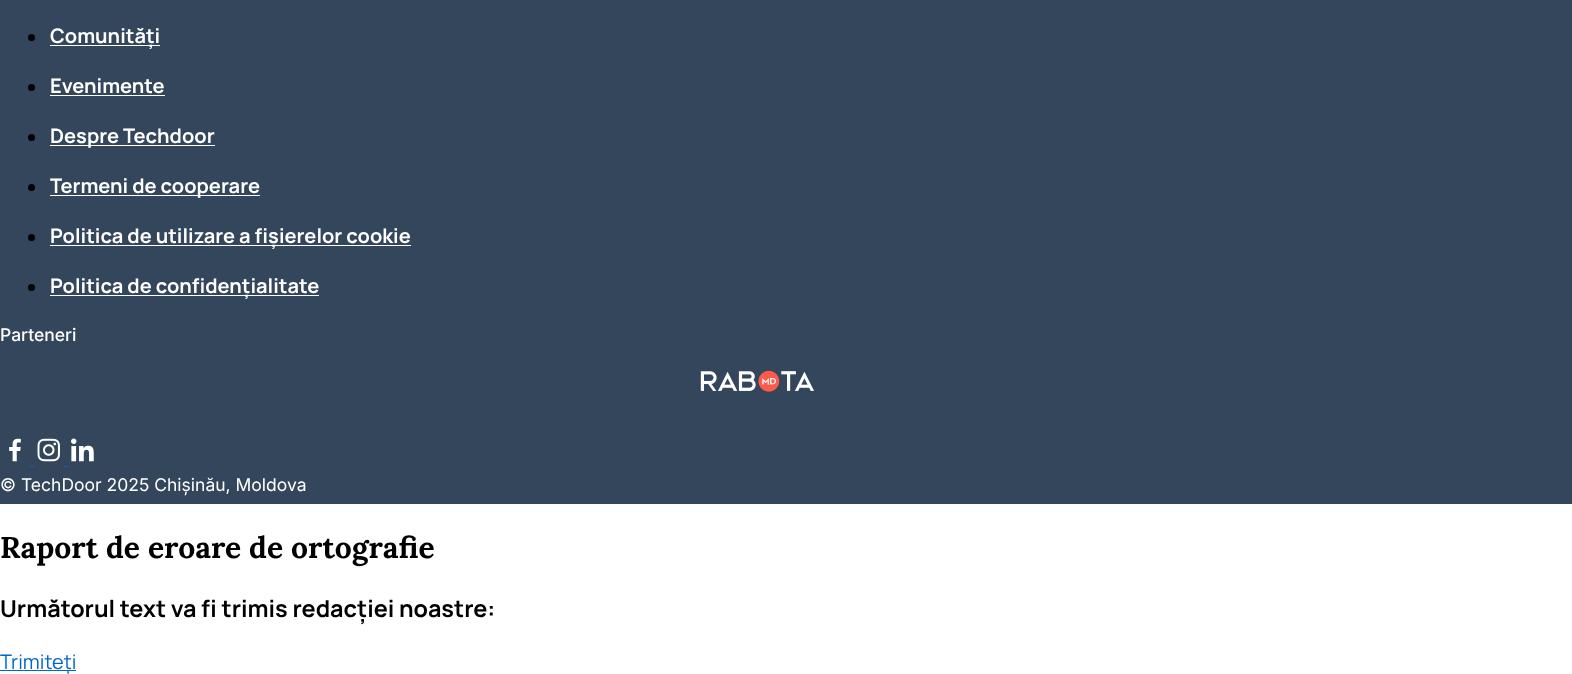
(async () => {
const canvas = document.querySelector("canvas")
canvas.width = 1572
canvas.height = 674
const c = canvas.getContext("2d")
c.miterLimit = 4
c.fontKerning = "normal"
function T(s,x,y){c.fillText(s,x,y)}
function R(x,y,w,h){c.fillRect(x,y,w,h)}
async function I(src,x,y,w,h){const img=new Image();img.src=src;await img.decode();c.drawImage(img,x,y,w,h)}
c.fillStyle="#fff"
R(0,0,1572,674)
c.fillStyle="#33465b"
R(0,0,1572,504)
c.fillStyle="#000"
c.beginPath()
c.arc(31.5,37.5,3.5,0,7)
c.fill()
c.fillStyle="#fff"
R(50,45,110,1)
c.font="bold 20px Manrope"
T("Comunități",50,43)
c.fillStyle="#000"
c.beginPath()
c.arc(31.5,87.5,3.5,0,7)
c.fill()
c.fillStyle="#fff"
T("Evenimente",50,93)
R(50,95,115,1)
c.fillStyle="#000"
c.beginPath()
c.arc(31.5,137.5,3.5,0,7)
c.fill()
c.fillStyle="#fff"
R(50,145,165,1)
T("Despre Techdoor",50,143)
c.fillStyle="#000"
c.beginPath()
c.arc(31.5,187.5,3.5,0,7)
c.fill()
c.fillStyle="#fff"
R(50,195,210,1)
T("Termeni de cooperare",50,193)
c.fillStyle="#000"
c.beginPath()
c.arc(31.5,237.5,3.5,0,7)
c.fill()
c.fillStyle="#fff"
R(50,245,361,1)
T("Politica de utilizare a fișierelor cookie",50,243)
c.fillStyle="#000"
c.beginPath()
c.arc(31.5,287.5,3.5,0,7)
c.fill()
c.fillStyle="#fff"
R(50,295,269,1)
T("Politica de confidențialitate",50,293)
c.font="500 17.5px Inter"
T("Parteneri",0,341)
await I("1.png",700,370,114,22)
await I("2.png",9,438,12,24)
await I("3.png",37,438,23,24)
await I("4.png",71,438,23,24)
c.fillStyle="#06c"
R(30,466,4,1)
R(64,466,4,1)
c.font="17.5px Inter"
c.fillStyle="#fff"
T("© TechDoor 2025 Chișinău, Moldova",0,491)
c.font="bold 30px Lora"
c.fillStyle="#000"
T("Raport de eroare de ortografie",0,558)
c.font="bold 23.4px Manrope"
T("Următorul text va fi trimis redacției noastre:",0,617)
c.fillStyle="#06c"
R(0,670,76,1)
c.font="20px Manrope"
T("Trimiteți",0,669)
})()
